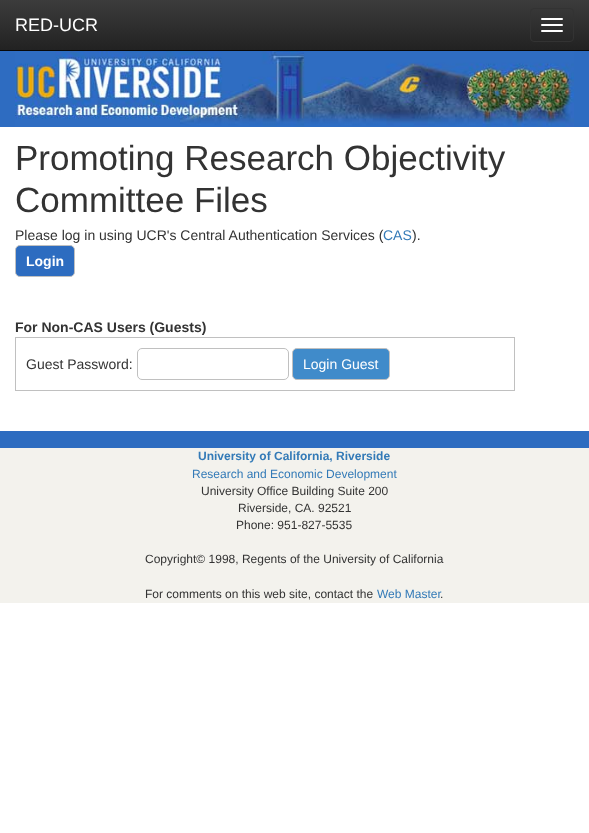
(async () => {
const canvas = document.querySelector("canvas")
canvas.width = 589
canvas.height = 833
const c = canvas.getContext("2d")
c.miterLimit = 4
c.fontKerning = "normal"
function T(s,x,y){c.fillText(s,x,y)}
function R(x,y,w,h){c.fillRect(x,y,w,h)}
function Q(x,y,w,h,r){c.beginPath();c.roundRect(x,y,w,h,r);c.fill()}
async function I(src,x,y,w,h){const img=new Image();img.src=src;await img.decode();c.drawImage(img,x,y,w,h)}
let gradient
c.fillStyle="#fff"
R(0,0,589,833)
gradient = c.createLinearGradient(295,0,295,50)
gradient.addColorStop(0,"#3c3c3c")
gradient.addColorStop(1,"#222")
c.fillStyle = gradient
R(0,0,589,50)
c.fillStyle="#080808"
R(0,50,589,1)
c.font="18px Liberation Sans"
c.fillStyle="#fff"
T("RED-UCR",15,31)
c.beginPath()
c.roundRect(530.5,8.5,43,33,3.5)
c.strokeStyle="#333"
c.stroke()
Q(541,18,22,2,1)
Q(541,24,22,2,1)
Q(541,30,22,2,1)
c.fillStyle="#2e6cc1"
R(0,51,589,76)
await I("1.png",15,51,559,76)
c.font="35px Liberation Sans"
c.fillStyle="#333"
T("Promoting Research Objectivity",15,170)
T("Committee Files",15,212)
c.font="14px Liberation Sans"
T("Please log in using UCR's Central Authentication Services (",15,240)
c.fillStyle="#337ab7"
T("CAS",383,240)
c.fillStyle="#333"
T(").",412,240)
c.fillStyle="#2d6cc0"
c.beginPath()
c.roundRect(15.5,245.5,59,31,4.5)
c.fill()
c.strokeStyle="#c0c0c0"
c.stroke()
c.font="bold 14px Liberation Sans"
c.fillStyle="#fff"
T("Login",26,266)
c.fillStyle="#333"
T("For Non-CAS Users (Guests)",15,332)
c.strokeRect(15.5,337.5,499,53)
c.font="14px Liberation Sans"
T("Guest Password:",26,369)
c.beginPath()
c.roundRect(137.5,348.5,151,31,4.5)
c.stroke()
c.fillStyle="#408bca"
c.beginPath()
c.roundRect(292.5,348.5,97,31,4.5)
c.fill()
c.stroke()
c.fillStyle="#fff"
T("Login Guest",303,369)
c.fillStyle="#f3f2ed"
R(0,448,589,155)
c.fillStyle="#2d6cc0"
R(0,431,589,17)
c.font="bold 12px Liberation Sans"
c.fillStyle="#337ab7"
T("University of California, Riverside",198,460)
c.font="12px Liberation Sans"
T("Research and Economic Development",192,478)
c.fillStyle="#333"
T("University Office Building Suite 200",201,495)
T("Riverside, CA. 92521",238,512)
T("Phone: 951-827-5535",236,529)
T("Copyright© 1998, Regents of the University of California",145,563)
T("For comments on this web site, contact the",145,598)
c.fillStyle="#337ab7"
T("Web Master",377,598)
c.fillStyle="#333"
T(".",440,598)
})()
